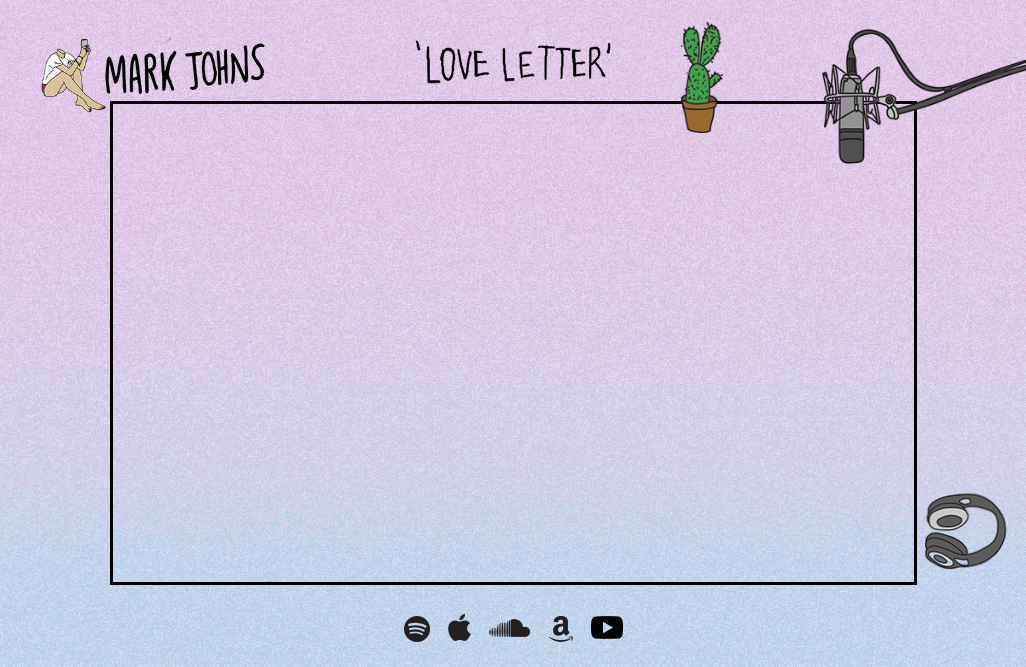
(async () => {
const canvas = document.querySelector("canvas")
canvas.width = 1026
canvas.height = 667
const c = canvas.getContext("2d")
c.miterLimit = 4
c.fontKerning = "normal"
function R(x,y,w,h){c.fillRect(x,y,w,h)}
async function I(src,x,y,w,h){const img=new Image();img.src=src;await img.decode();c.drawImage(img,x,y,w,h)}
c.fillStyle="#fff"
R(0,0,1026,667)
await I("1.png",0,0,1026,667)
await I("2.png",41,38,65,75)
await I("3.png",105,38,160,57)
await I("4.png",415,40,196,44)
c.strokeStyle="#000"
c.lineWidth=3
c.strokeRect(111.5,102.5,804,481)
await I("5.png",681,22,42,111)
await I("6.png",822,29,204,135)
await I("7.png",924,493,83,77)
await I("8.png",404,616,26,26)
await I("9.png",448,614,23,27)
await I("10.png",489,619,41,18)
await I("11.png",549,616,24,26)
await I("12.png",591,616,32,23)
})()
